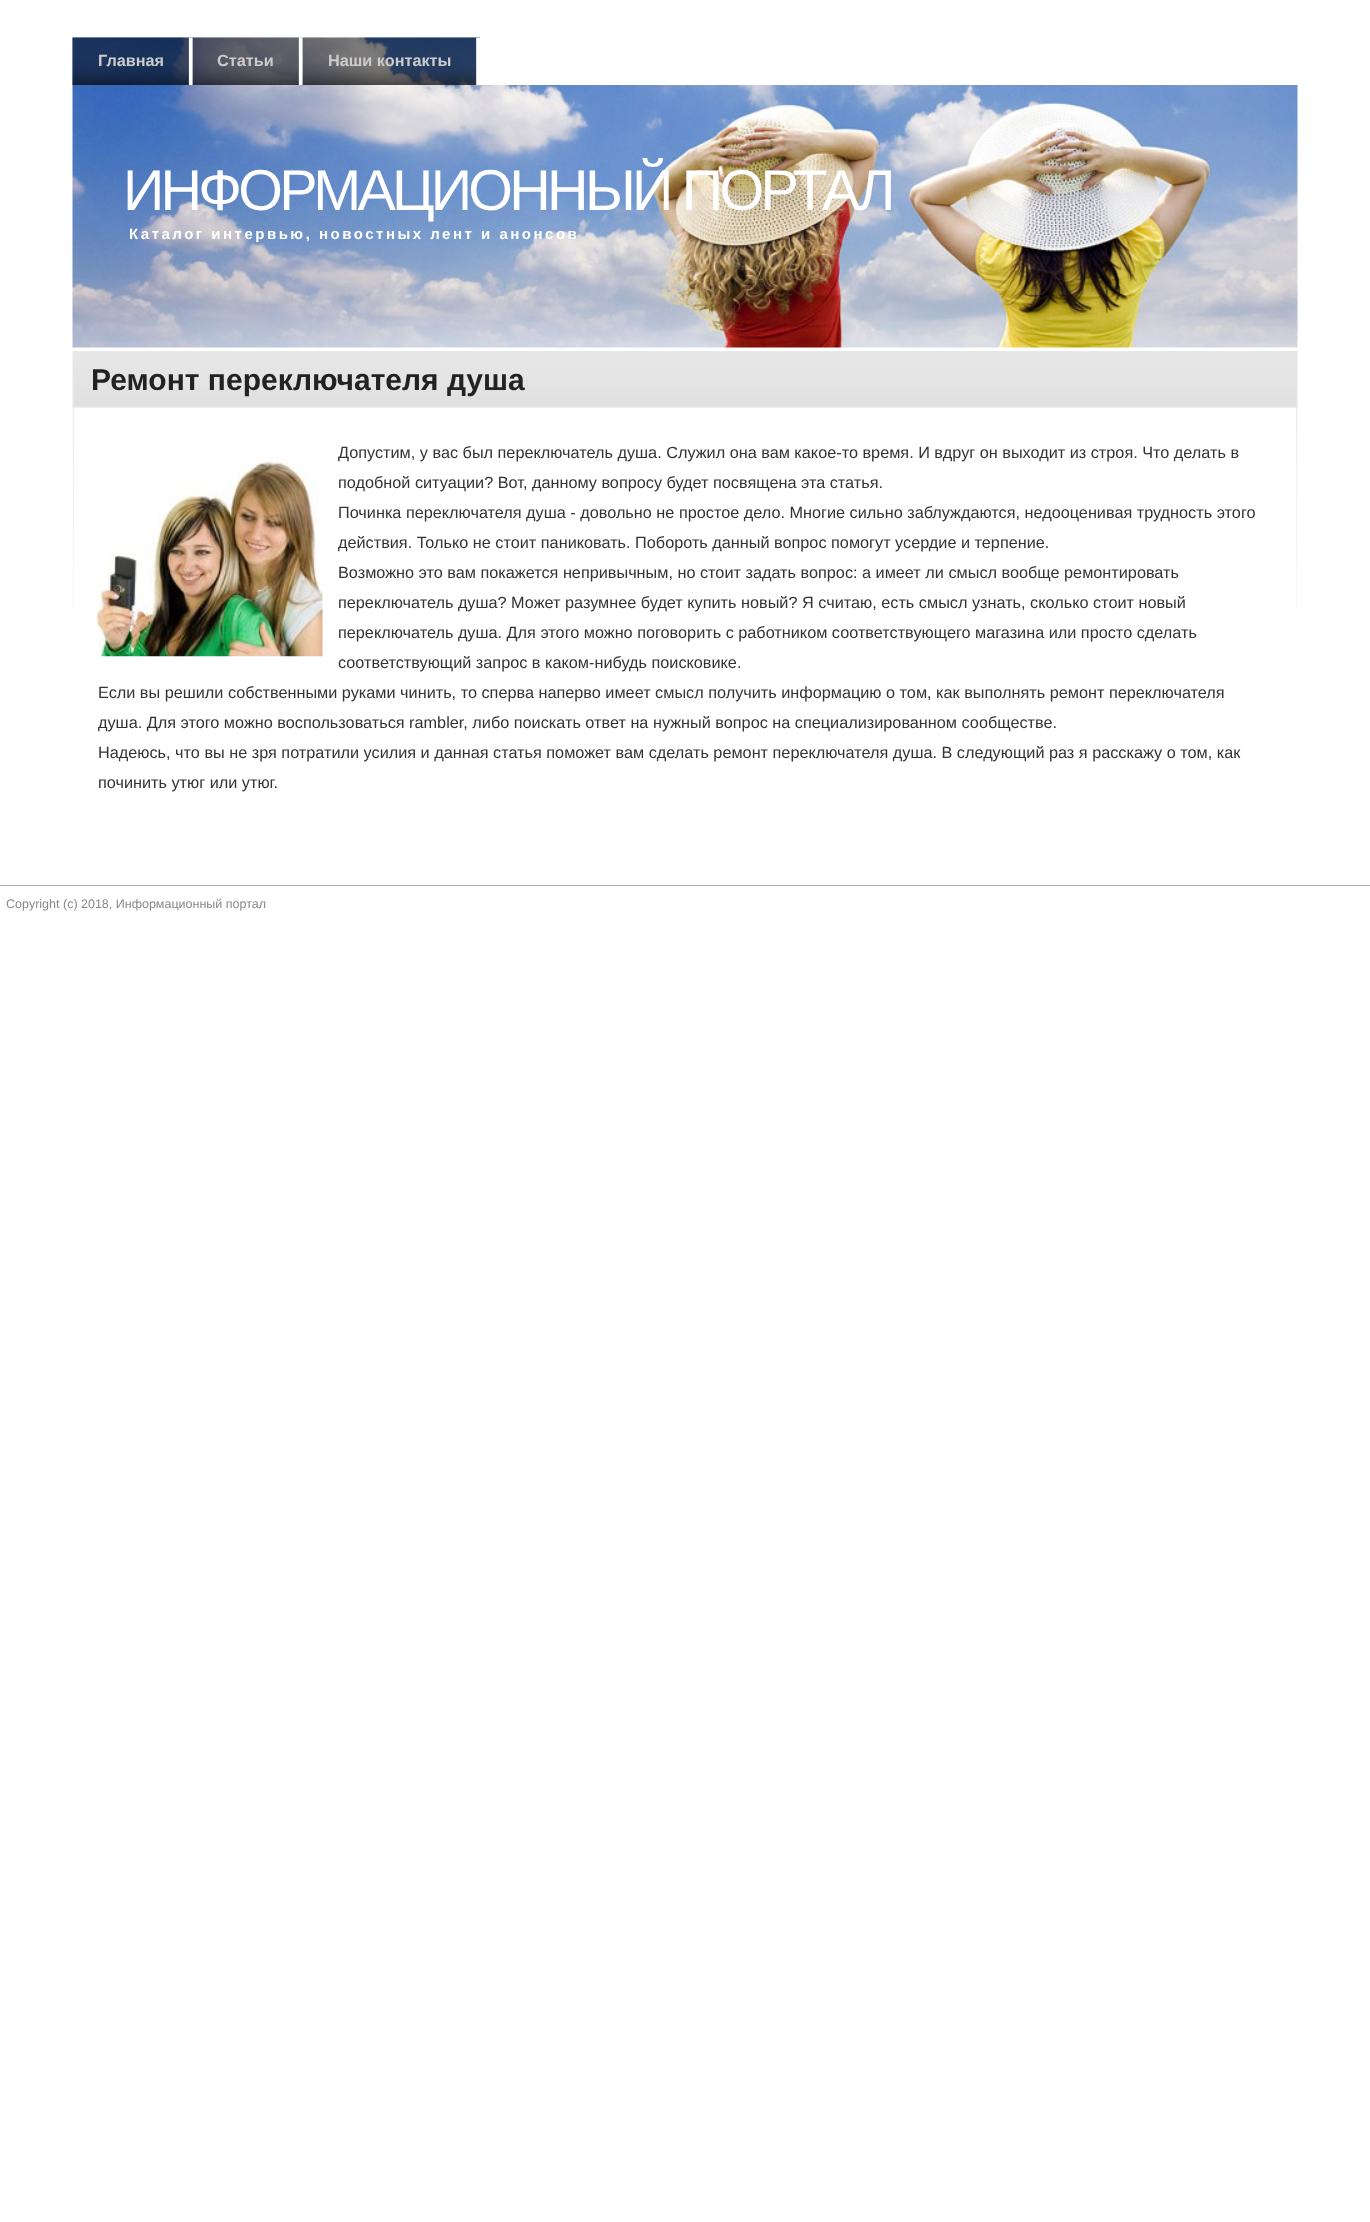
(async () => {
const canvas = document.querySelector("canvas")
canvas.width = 1370
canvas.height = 2222
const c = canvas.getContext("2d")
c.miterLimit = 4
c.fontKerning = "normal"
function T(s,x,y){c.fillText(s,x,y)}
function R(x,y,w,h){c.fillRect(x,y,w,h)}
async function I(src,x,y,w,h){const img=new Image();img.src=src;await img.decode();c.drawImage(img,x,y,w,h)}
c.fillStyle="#fff"
R(0,0,1370,2222)
await I("1.png",72,37,408,48)
R(189,38,4,47)
await I("2.png",72,37,117,48)
c.font="bold 16.25px Liberation Sans"
c.fillStyle="#ccc"
T("Главная",98,66)
c.fillStyle="#fff"
R(299,38,4,47)
await I("3.png",192,37,107,48)
c.fillStyle="#ccc"
T("Статьи",217,66)
c.fillStyle="#fff"
R(476,38,4,47)
await I("4.png",302,37,175,48)
c.fillStyle="#ccc"
T("Наши контакты",328,66)
await I("5.png",72,85,1226,263)
c.letterSpacing="-3.75px"
c.font="57.5px Liberation Sans"
c.fillStyle="#fff"
T("ИНФОРМАЦИОННЫЙ ПОРТАЛ",123,210)
c.letterSpacing="2.5px"
c.font="bold 15px Liberation Sans"
T("Каталог интервью, новостных лент и анонсов",129,239)
await I("6.png",72,351,2,262)
await I("7.png",1296,408,2,205)
c.fillStyle="#ededed"
R(74,352,1224,56)
await I("8.png",72,351,1224,56)
c.fillStyle="#e7e7e7"
R(1296,351,2,1)
R(1296,351,1,57)
R(73,406,1225,1)
R(73,374,1,34)
c.letterSpacing="0px"
c.font="bold 30px Liberation Sans"
c.fillStyle="#222"
T("Ремонт переключателя душа",91,390)
c.font="16.25px Liberation Sans"
c.fillStyle="#333"
T("Допустим, у вас был переключатель душа. Служил она вам какое-то время. И вдруг он выходит из строя. Что делать в",338,458)
await I("9.png",97,461,226,196)
T("подобной ситуации? Вот, данному вопросу будет посвящена эта статья.",338,488)
T("Починка переключателя душа - довольно не простое дело. Многие сильно заблуждаются, недооценивая трудность этого",338,518)
T("действия. Только не стоит паниковать. Побороть данный вопрос помогут усердие и терпение.",338,548)
T("Возможно это вам покажется непривычным, но стоит задать вопрос: а имеет ли смысл вообще ремонтировать",338,578)
T("переключатель душа? Может разумнее будет купить новый? Я считаю, есть смысл узнать, сколько стоит новый",338,608)
T("переключатель душа. Для этого можно поговорить с работником соответствующего магазина или просто сделать",338,638)
T("соответствующий запрос в каком-нибудь поисковике.",338,668)
T("Если вы решили собственными руками чинить, то сперва наперво имеет смысл получить информацию о том, как выполнять ремонт переключателя",98,698)
T("душа. Для этого можно воспользоваться rambler, либо поискать ответ на нужный вопрос на специализированном сообществе.",98,728)
T("Надеюсь, что вы не зря потратили усилия и данная статья поможет вам сделать ремонт переключателя душа. В следующий раз я расскажу о том, как",98,758)
T("починить утюг или утюг.",98,788)
c.fillStyle="#adadad"
R(0,885,1370,1)
c.font="12.5px Liberation Sans"
c.fillStyle="#888"
T("Copyright (c) 2018, Информационный портал",6,908)
})()
